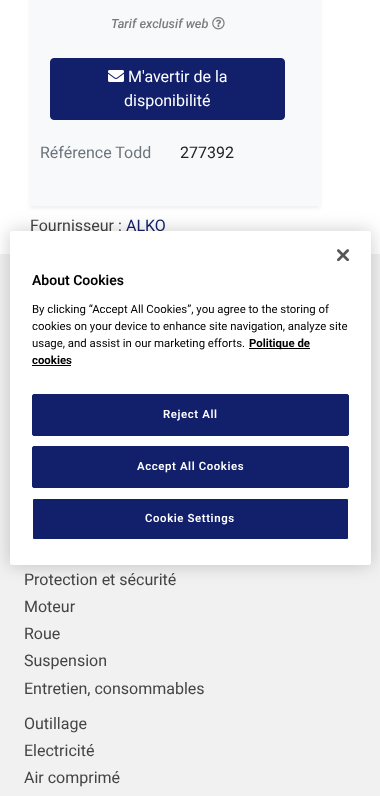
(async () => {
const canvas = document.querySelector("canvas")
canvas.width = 380
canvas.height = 796
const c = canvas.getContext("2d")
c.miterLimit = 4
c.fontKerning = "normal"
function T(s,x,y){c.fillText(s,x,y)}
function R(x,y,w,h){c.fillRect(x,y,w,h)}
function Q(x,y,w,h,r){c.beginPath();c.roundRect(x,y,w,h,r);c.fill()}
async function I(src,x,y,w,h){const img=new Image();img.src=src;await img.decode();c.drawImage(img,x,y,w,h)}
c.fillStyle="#f1f1f1"
R(0,0,380,796)
c.fillStyle="#fff"
R(0,0,380,254)
c.fillStyle="#00000012"
c.filter="blur(2px)"
c.beginPath()
c.rect(30,-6,290,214)
c.fill()
c.filter="none"
c.fillStyle="#f8f9fa"
R(30,0,290,206)
c.font="italic 500 12.75px Roboto"
c.fillStyle="#7c7c7c"
T("Tarif exclusif web",111,28)
await I("1.png",212,17,13,13)
c.fillStyle="#121f6b"
c.beginPath()
c.roundRect(50.5,58.5,234,61,3.5)
c.fill()
c.strokeStyle="#121f6b"
c.stroke()
await I("2.png",108,70,16,12)
c.font="16px Roboto"
c.fillStyle="#fff"
T("M'avertir de la",128,82)
T("disponibilité",124,106)
c.fillStyle="#6c757d"
T("Référence Todd",40,158)
c.fillStyle="#212529"
T("277392",180,158)
c.fillStyle="#444"
T("Fournisseur :",30,231)
c.fillStyle="#121f6b"
T("ALKO",126,231)
c.fillStyle="#444"
T("Protection et sécurité",24,585)
T("Moteur",24,612)
T("Roue",24,639)
T("Suspension",24,666)
T("Entretien, consommables",24,694)
T("Outillage",24,729)
T("Electricité",24,756)
T("Air comprimé",24,783)
c.fillStyle="#00000033"
c.filter="blur(9px)"
c.beginPath()
c.roundRect(10,231,361,334,2.5)
c.fill()
c.filter="none"
c.fillStyle="#fff"
Q(10,231,361,334,2.5)
await I("3.png",337,249,12,12)
c.font="600 14px Roboto"
c.fillStyle="#000"
T("About Cookies",32,285)
c.font="11.4px Roboto"
T("By clicking “Accept All Cookies”, you agree to the storing of",32,313)
T("cookies on your device to enhance site navigation, analyze site",32,330)
T("usage, and assist in our marketing efforts.",32,347)
R(249,348,61,1)
c.font="bold 11.4px Roboto"
T("Politique de",249,347)
T("cookies",32,364)
R(32,365,39,1)
c.fillStyle="#121f6b"
c.beginPath()
c.roundRect(32.5,394.5,316,41,1.5)
c.fill()
c.stroke()
c.letterSpacing="0.6px"
c.font="600 11.4px Roboto"
c.fillStyle="#fff"
T("Reject All",163,418)
c.fillStyle="#121f6b"
c.beginPath()
c.roundRect(32.5,446.5,316,41,1.5)
c.fill()
c.stroke()
c.fillStyle="#fff"
T("Accept All Cookies",137,470)
c.fillStyle="#121f6b"
c.beginPath()
c.roundRect(32.5,498.5,316,41,1.5)
c.fill()
c.strokeStyle="#fff"
c.stroke()
c.fillStyle="#fff"
T("Cookie Settings",145,522)
})()
